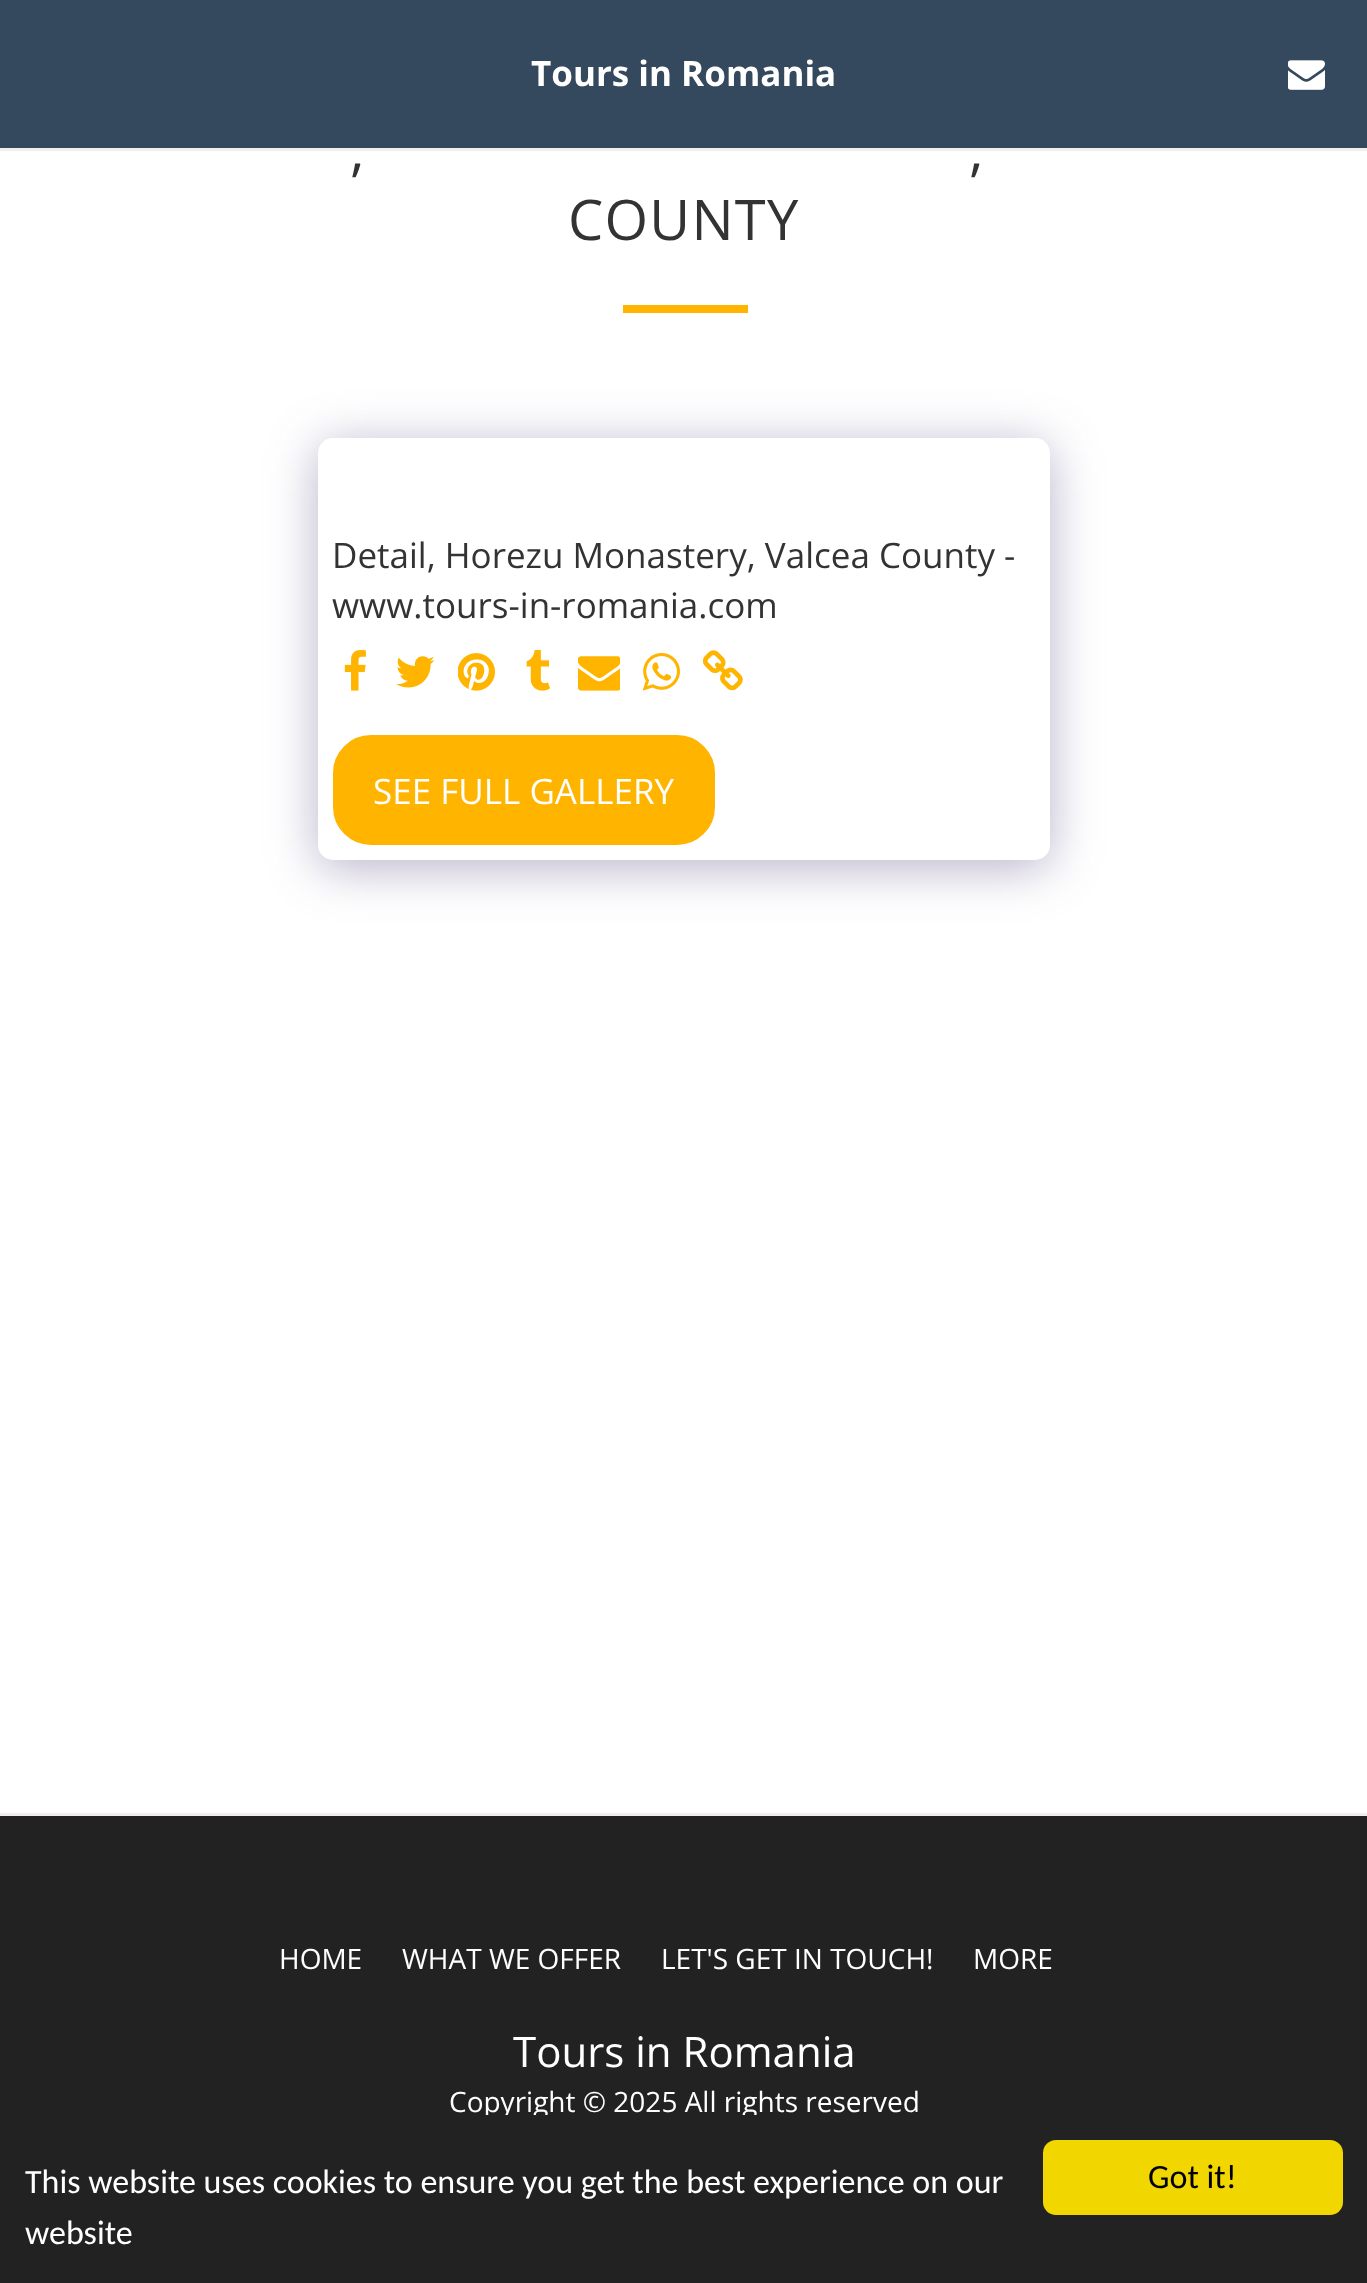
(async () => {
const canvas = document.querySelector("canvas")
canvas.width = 1367
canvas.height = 2283
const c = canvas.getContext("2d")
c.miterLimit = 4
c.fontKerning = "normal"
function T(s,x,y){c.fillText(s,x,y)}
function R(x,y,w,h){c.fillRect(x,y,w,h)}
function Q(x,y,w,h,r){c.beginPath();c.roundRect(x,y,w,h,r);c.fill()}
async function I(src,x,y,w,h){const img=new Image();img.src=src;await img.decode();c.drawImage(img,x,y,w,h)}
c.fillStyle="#fff"
R(0,0,1367,2283)
c.fillStyle="#34495e"
R(0,0,1367,148)
c.fillStyle="#f3eeee"
R(0,148,1367,3)
c.font="bold 35px Open Sans"
c.fillStyle="#fff"
T("Tours in Romania",531,86)
await I("1.png",1288,60,37,30)
c.letterSpacing="1.25px"
c.font="56px Open Sans"
c.fillStyle="#333"
T(",",350,170)
T(",",969,170)
T("COUNTY",568,240)
c.fillStyle="#ffb400"
R(623,305,125,8)
c.fillStyle="#4d3f7a66"
c.filter="blur(25px)"
c.beginPath()
c.roundRect(318,445,732,423,15)
c.fill()
c.filter="none"
c.fillStyle="#fff"
Q(318,438,732,422,15)
c.letterSpacing="0px"
c.font="35px Open Sans"
c.fillStyle="#333"
T("Detail, Horezu Monastery, Valcea County -",332,568)
T("www.tours-in-romania.com",332,618)
await I("2.png",344,650,22,41)
await I("3.png",396,656,39,32)
await I("4.png",458,653,37,38)
await I("5.png",526,650,24,41)
await I("6.png",578,656,42,35)
await I("7.png",643,653,37,38)
await I("8.png",703,650,40,41)
c.fillStyle="#ffb400"
c.beginPath()
c.roundRect(334.5,736.5,379,107,36.5)
c.fill()
c.strokeStyle="#ffb400"
c.lineWidth=3
c.stroke()
c.fillStyle="#fff"
T("SEE FULL GALLERY",373,804)
c.fillStyle="#222"
R(0,1816,1367,299)
c.fillStyle="#f3eeee"
R(0,1813,1367,3)
c.font="28px Open Sans"
c.fillStyle="#fff"
T("HOME",279,1969)
T("WHAT WE OFFER",402,1969)
T("LET'S GET IN TOUCH!",661,1969)
T("MORE",973,1969)
c.font="42px Open Sans"
T("Tours in Romania",513,2067)
c.font="28px Open Sans"
T("Copyright © 2025 All rights reserved",449,2112)
c.fillStyle="#222"
R(0,2115,1367,168)
c.font="34px Carlito"
c.fillStyle="#fff"
T("This website uses cookies to ensure you get the best experience on our",25,2193)
T("website",25,2244)
c.fillStyle="#f1d600"
Q(1043,2140,300,75,13)
c.fillStyle="#000"
T("Got it!",1148,2188)
})()
